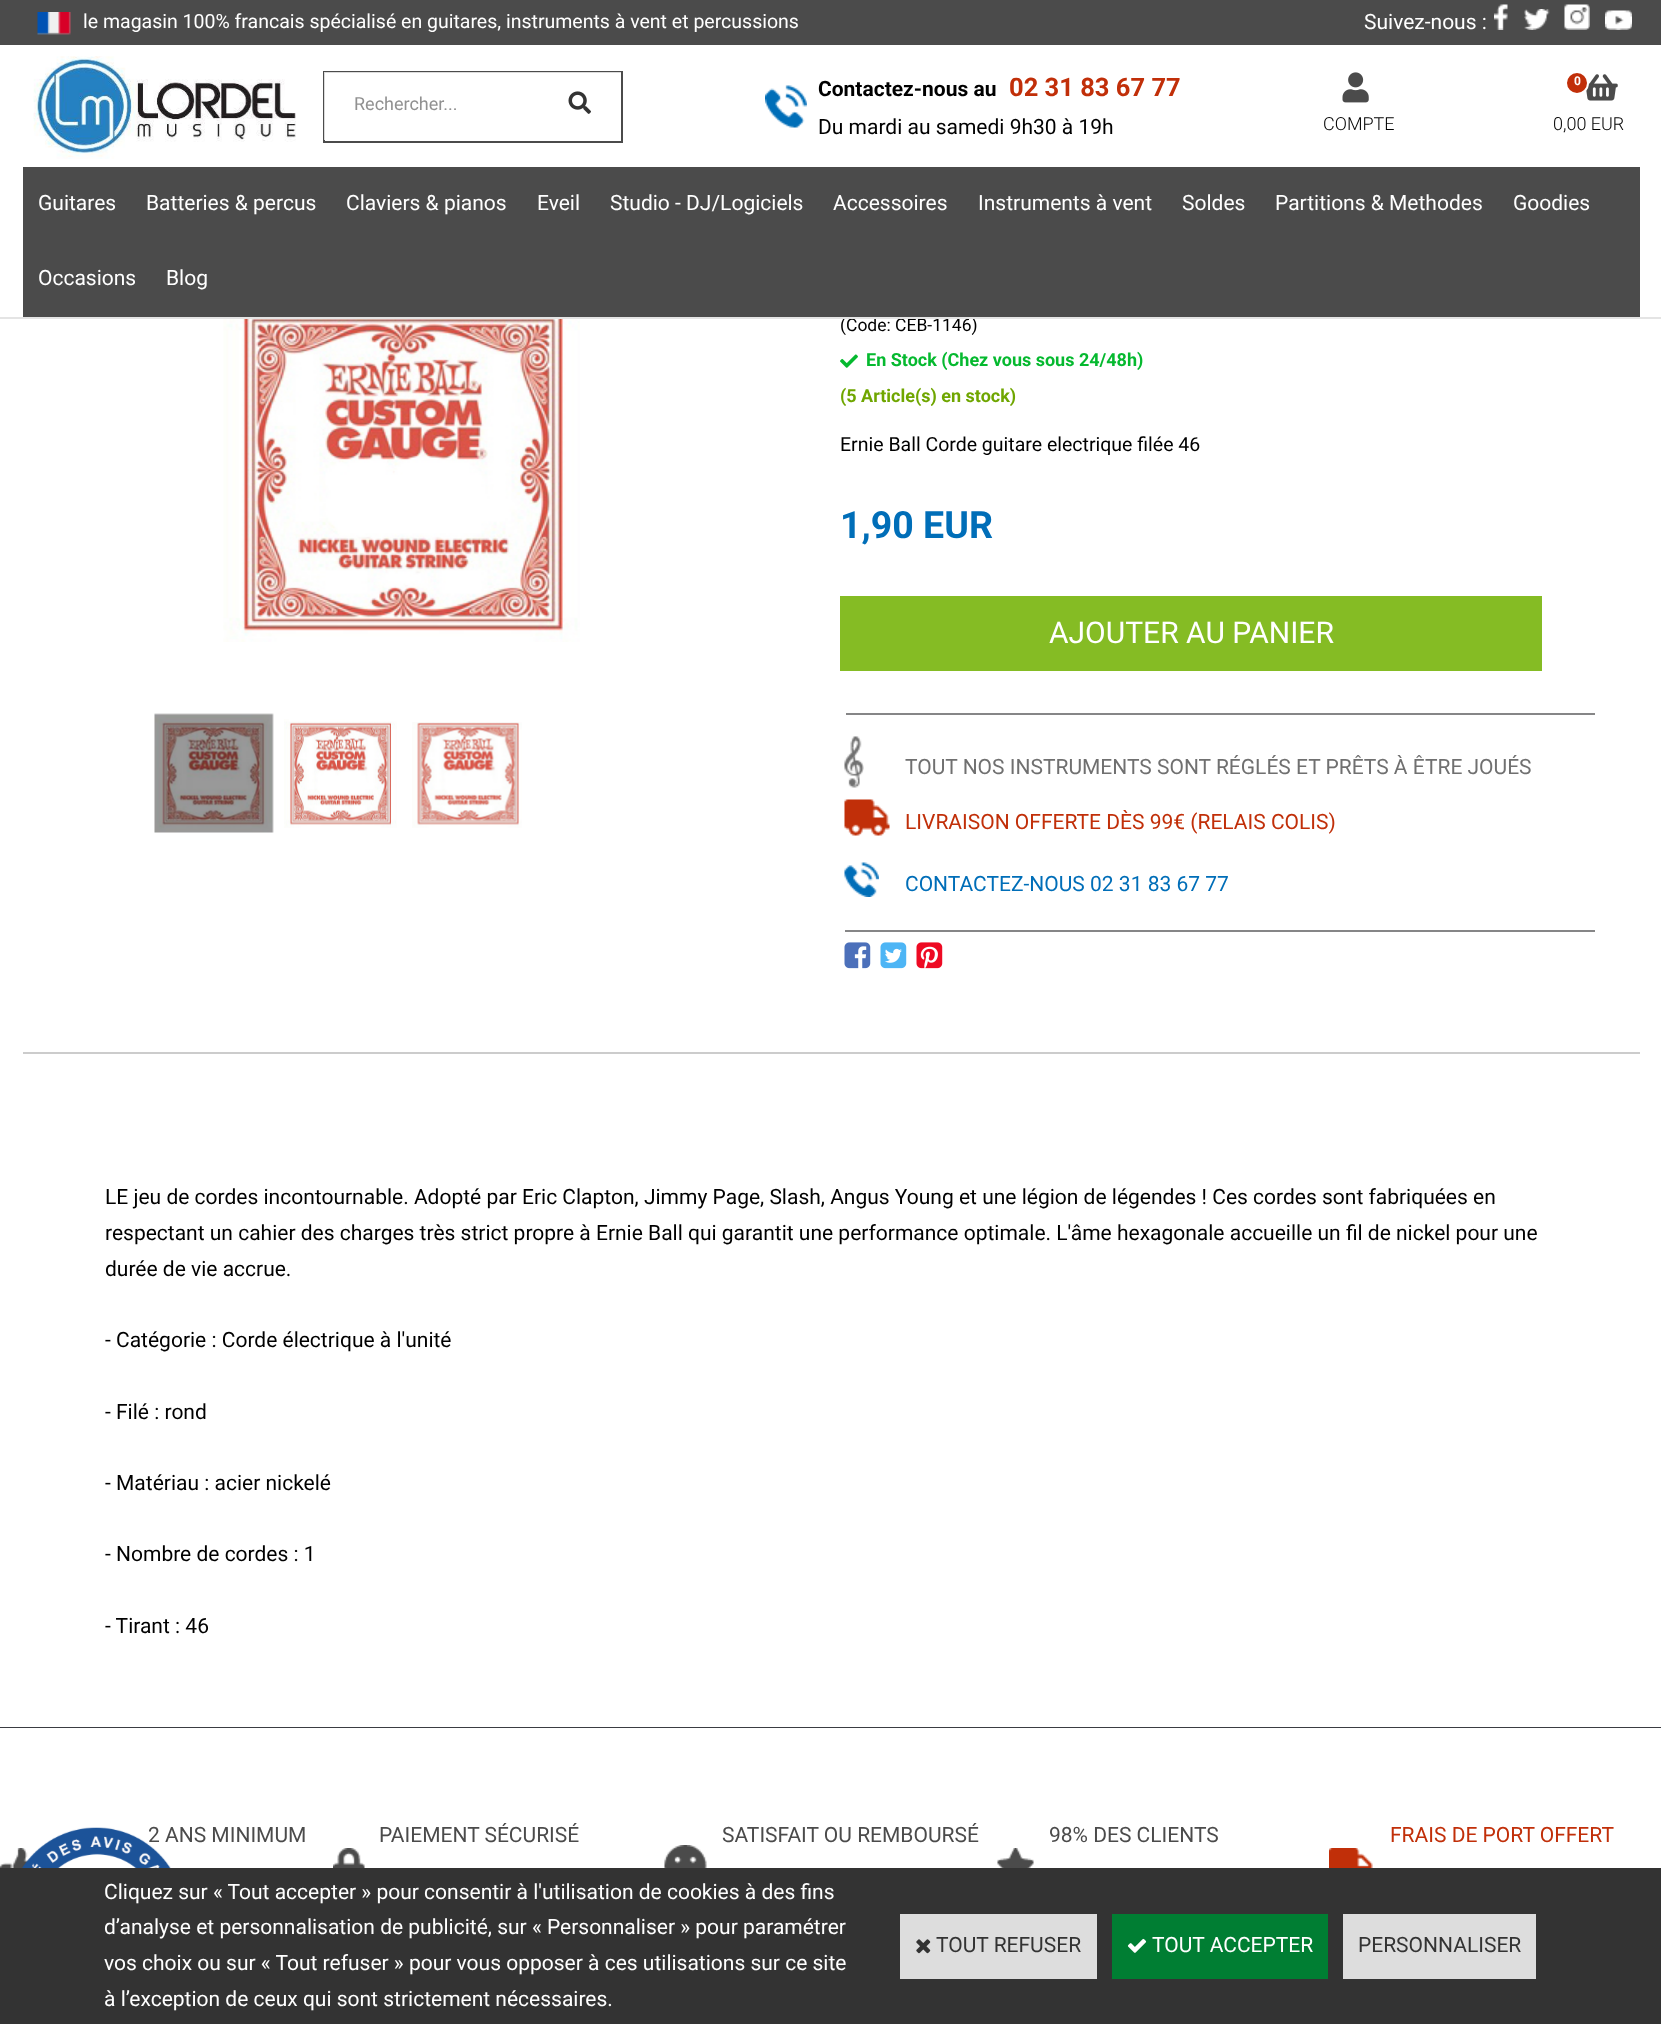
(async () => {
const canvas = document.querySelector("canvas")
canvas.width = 1661
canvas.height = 2024
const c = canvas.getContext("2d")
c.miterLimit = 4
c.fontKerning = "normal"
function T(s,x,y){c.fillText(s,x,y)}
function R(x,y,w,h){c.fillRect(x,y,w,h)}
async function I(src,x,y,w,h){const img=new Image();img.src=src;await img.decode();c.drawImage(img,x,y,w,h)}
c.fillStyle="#3a3c42"
R(0,0,1661,2024)
c.fillStyle="#fff"
R(0,45,1661,272)
R(0,319,1661,1408)
c.font="17.5px Roboto"
c.fillStyle="#000"
T("(Code: CEB-1146)",840,331)
c.fillStyle="#e4e4e4"
R(0,317,1661,2)
c.fillStyle="#4b4b4b"
R(0,0,1661,45)
await I("1.png",37,12,34,23)
c.font="19.5px Roboto"
c.fillStyle="#fff"
T("le magasin 100% francais spécialisé en guitares, instruments à vent et percussions",83,28)
c.font="21px Roboto"
T("Suivez-nous :",1364,29)
await I("2.png",1494,4,14,26)
await I("3.png",1524,9,26,21)
await I("4.png",1564,4,26,26)
await I("5.png",1605,10,27,20)
await I("6.png",33,56,263,103)
c.strokeStyle="#4b4b4b"
c.lineWidth=2
c.strokeRect(324,72,298,70)
c.fillStyle="#ffffffcc"
R(324,72,215,68)
c.font="18px Roboto"
c.fillStyle="#919191"
T("Rechercher...",354,110)
c.fillStyle="#ffffffcc"
R(539,72,82,1)
await I("7.png",568,91,23,23)
await I("8.png",765,85,42,43)
c.font="bold 21px Roboto"
c.fillStyle="#000"
T("Contactez-nous au",818,96)
c.font="bold 25.5px Roboto"
c.fillStyle="#c12f09"
T("02 31 83 67 77",1009,96)
c.font="21px Roboto"
c.fillStyle="#000"
T("Du mardi au samedi 9h30 à 19h",818,134)
await I("9.png",1586,74,32,27)
c.fillStyle="#c12f09"
c.beginPath()
c.arc(1577,83,11,0,7)
c.fill()
c.strokeStyle="#fff"
c.stroke()
c.font="bold 12px Roboto"
c.fillStyle="#fff"
T("0",1574,85)
c.font="300 18px Roboto"
c.fillStyle="#000"
T("0,00 EUR",1553,130)
await I("10.png",1342,72,27,31)
T("COMPTE",1323,130)
c.fillStyle="#4b4b4b"
R(23,167,1617,150)
c.font="21px Roboto"
c.fillStyle="#fff"
T("Guitares",38,210)
T("Batteries & percus",146,210)
T("Claviers & pianos",346,210)
T("Eveil",537,210)
T("Studio - DJ/Logiciels",610,210)
T("Accessoires",833,210)
T("Instruments à vent",978,210)
T("Soldes",1182,210)
T("Partitions & Methodes",1275,210)
T("Goodies",1513,210)
T("Occasions",38,285)
T("Blog",166,285)
await I("11.png",223,319,357,323)
await I("12.png",154,713,120,120)
await I("13.png",284,719,113,109)
await I("14.png",412,722,110,106)
await I("15.png",840,354,18,14)
c.font="bold 18px Roboto"
c.fillStyle="#05b92f"
T("En Stock (Chez vous sous 24/48h)",866,366)
c.fillStyle="#6fa600"
T("(5 Article(s) en stock)",840,402)
c.font="19.5px Roboto"
c.fillStyle="#000"
T("Ernie Ball Corde guitare electrique filée 46",840,451)
c.font="bold 37.5px Roboto"
c.fillStyle="#006eb8"
T("1,90 EUR",840,538)
c.fillStyle="#85bc24"
R(840,596,702,75)
c.font="30px Roboto"
c.fillStyle="#fff"
T("AJOUTER AU PANIER",1049,643)
c.fillStyle="#868687"
R(846,713,749,2)
R(845,930,750,2)
await I("16.png",844,736,20,52)
c.font="21px Roboto"
c.fillStyle="#707070"
T("TOUT NOS INSTRUMENTS SONT RÉGLÉS ET PRÊTS À ÊTRE JOUÉS",905,774)
await I("17.png",844,799,46,37)
c.fillStyle="#c12f09"
T("LIVRAISON OFFERTE DÈS 99€ (RELAIS COLIS)",905,829)
await I("18.png",844,862,35,35)
c.fillStyle="#006eb8"
T("CONTACTEZ-NOUS 02 31 83 67 77",905,891)
await I("19.png",844,942,27,27)
await I("20.png",880,942,27,27)
await I("21.png",916,942,27,27)
c.fillStyle="#ccc"
R(23,1052,1617,2)
c.fillStyle="#000"
T("LE jeu de cordes incontournable. Adopté par Eric Clapton, Jimmy Page, Slash, Angus Young et une légion de légendes ! Ces cordes sont fabriquées en",105,1204)
T("respectant un cahier des charges très strict propre à Ernie Ball qui garantit une performance optimale. L'âme hexagonale accueille un fil de nickel pour une",105,1240)
T("durée de vie accrue.",105,1276)
T("- Catégorie : Corde électrique à l'unité",105,1347)
T("- Filé : rond",105,1419)
T("- Matériau : acier nickelé",105,1490)
T("- Nombre de cordes : 1",105,1561)
T("- Tirant : 46",105,1633)
c.fillStyle="#fff"
R(0,1728,1661,140)
c.fillStyle="#4b4b4b"
T("2 ANS MINIMUM",148,1842)
await I("22.png",0,1848,30,20)
T("PAIEMENT SÉCURISÉ",379,1842)
await I("23.png",333,1848,32,20)
T("SATISFAIT OU REMBOURSÉ",722,1842)
await I("24.png",664,1845,43,23)
T("98% DES CLIENTS",1049,1842)
await I("25.png",997,1848,37,20)
c.fillStyle="#c12f09"
T("FRAIS DE PORT OFFERT",1390,1842)
await I("26.png",1329,1848,44,20)
c.fillStyle="#333"
R(0,1868,1661,156)
c.fillStyle="#fff"
T("Cliquez sur « Tout accepter » pour consentir à l'utilisation de cookies à des fins",104,1899)
T("d’analyse et personnalisation de publicité, sur « Personnaliser » pour paramétrer",104,1934)
T("vos choix ou sur « Tout refuser » pour vous opposer à ces utilisations sur ce site",104,1970)
T("à l’exception de ceux qui sont strictement nécessaires.",104,2006)
c.fillStyle="#ddd"
R(900,1914,197,65)
await I("27.png",916,1939,15,15)
c.fillStyle="#333"
T("TOUT REFUSER",936,1952)
c.fillStyle="#007e33"
R(1112,1914,216,65)
await I("28.png",1127,1938,20,15)
c.fillStyle="#fff"
T("TOUT ACCEPTER",1152,1952)
c.fillStyle="#ddd"
R(1343,1914,193,65)
c.fillStyle="#333"
T("PERSONNALISER",1358,1952)
await I("29.png",22,1827,149,41)
})()
